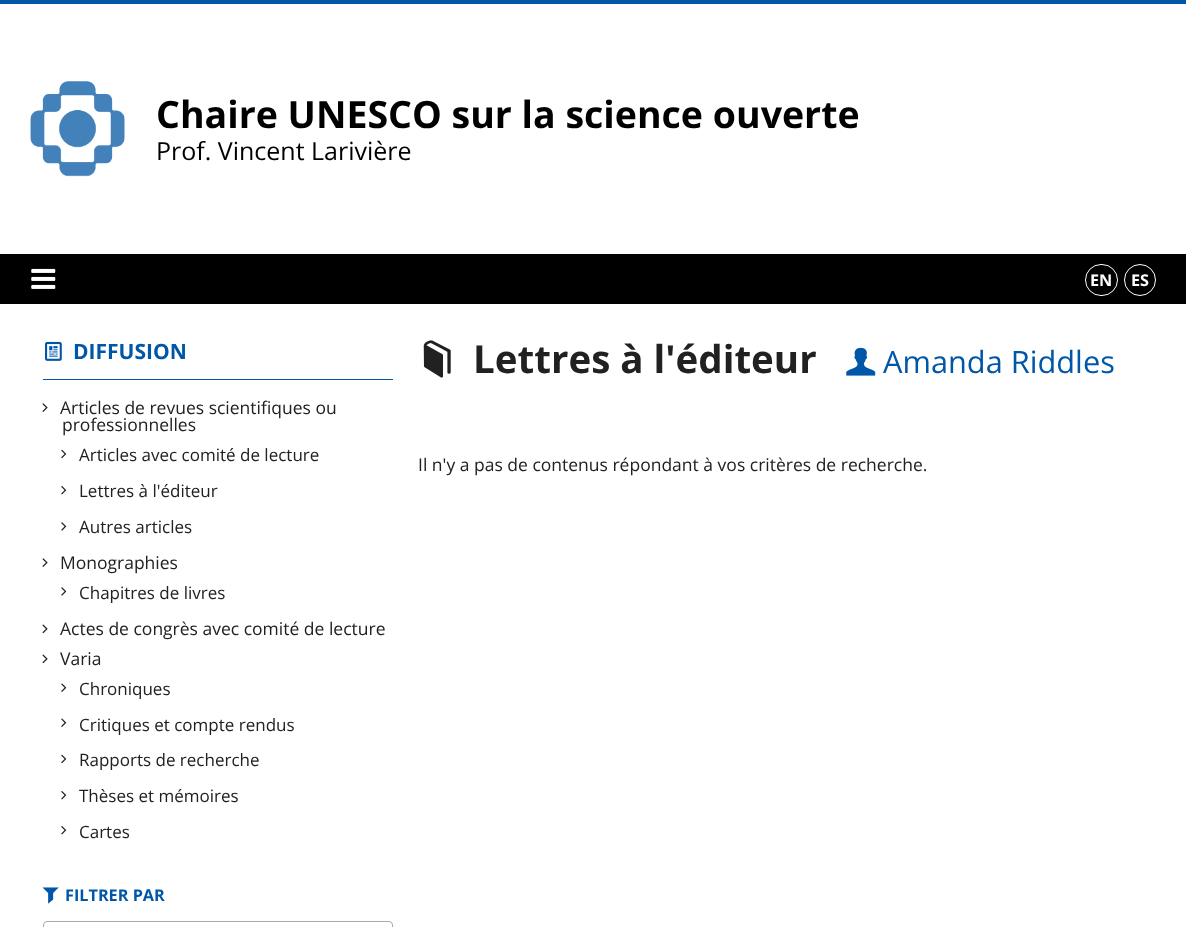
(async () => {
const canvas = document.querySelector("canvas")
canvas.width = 1186
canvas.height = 927
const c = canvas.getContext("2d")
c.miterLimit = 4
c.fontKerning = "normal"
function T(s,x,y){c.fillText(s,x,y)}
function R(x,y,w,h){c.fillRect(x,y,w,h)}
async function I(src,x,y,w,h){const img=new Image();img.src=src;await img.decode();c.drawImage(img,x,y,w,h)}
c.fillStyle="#fff"
R(0,0,1186,927)
c.fillStyle="#0056a7"
R(0,0,1186,4)
await I("1.png",30,81,95,96)
c.font="bold 37.5px Open Sans"
c.fillStyle="#000"
T("Chaire UNESCO sur la science ouverte",156,128)
c.font="25px Open Sans"
T("Prof. Vincent Larivière",156,160)
R(0,254,1186,50)
await I("2.png",31,268,25,21)
c.beginPath()
c.roundRect(1085.5,264.5,32,31,15.5)
c.strokeStyle="#fff"
c.stroke()
c.font="bold 16.25px Open Sans"
c.fillStyle="#fff"
T("EN",1090,286)
c.beginPath()
c.arc(1140,280,15.5,0,7)
c.stroke()
T("ES",1131,286)
c.fillStyle="#0056a7"
R(43,379,350,1)
await I("3.png",45,341,17,20)
c.font="bold 21px Open Sans"
T("DIFFUSION",73,359)
await I("4.png",42,403,6,9)
c.font="17.5px Open Sans"
c.fillStyle="#212121"
T("Articles de revues scientifiques ou",60,414)
T("professionnelles",62,431)
await I("5.png",61,449,6,10)
c.font="17px Open Sans"
T("Articles avec comité de lecture",79,461)
await I("6.png",61,486,6,9)
T("Lettres à l'éditeur",79,497)
await I("7.png",61,522,6,9)
T("Autres articles",79,533)
await I("4.png",42,558,6,9)
c.font="17.5px Open Sans"
T("Monographies",60,569)
await I("7.png",61,587,6,9)
c.font="17px Open Sans"
T("Chapitres de livres",79,599)
await I("8.png",42,624,6,10)
c.font="17.5px Open Sans"
T("Actes de congrès avec comité de lecture",60,635)
await I("8.png",42,654,6,10)
T("Varia",60,665)
await I("9.png",61,683,6,9)
c.font="17px Open Sans"
T("Chroniques",79,695)
await I("9.png",61,718,6,9)
T("Critiques et compte rendus",79,731)
await I("5.png",61,754,6,10)
T("Rapports de recherche",79,766)
await I("6.png",61,791,6,9)
T("Thèses et mémoires",79,802)
await I("6.png",61,826,6,9)
T("Cartes",79,838)
await I("10.png",42,887,17,17)
c.font="bold 16.25px Open Sans"
c.fillStyle="#0056a7"
T("FILTRER PAR",65,901)
c.beginPath()
c.roundRect(43.5,921.5,349,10,3.5)
c.strokeStyle="#aaa"
c.stroke()
await I("11.png",423,340,28,38)
c.font="bold 38.5px Open Sans"
c.fillStyle="#212121"
T("Lettres à l'éditeur",473,373)
await I("12.png",846,347,30,29)
c.font="30.75px Open Sans"
c.fillStyle="#0056a7"
T("Amanda Riddles",883,373)
c.font="17.5px Open Sans"
c.fillStyle="#212121"
T("Il n'y a pas de contenus répondant à vos critères de recherche.",418,471)
})()
